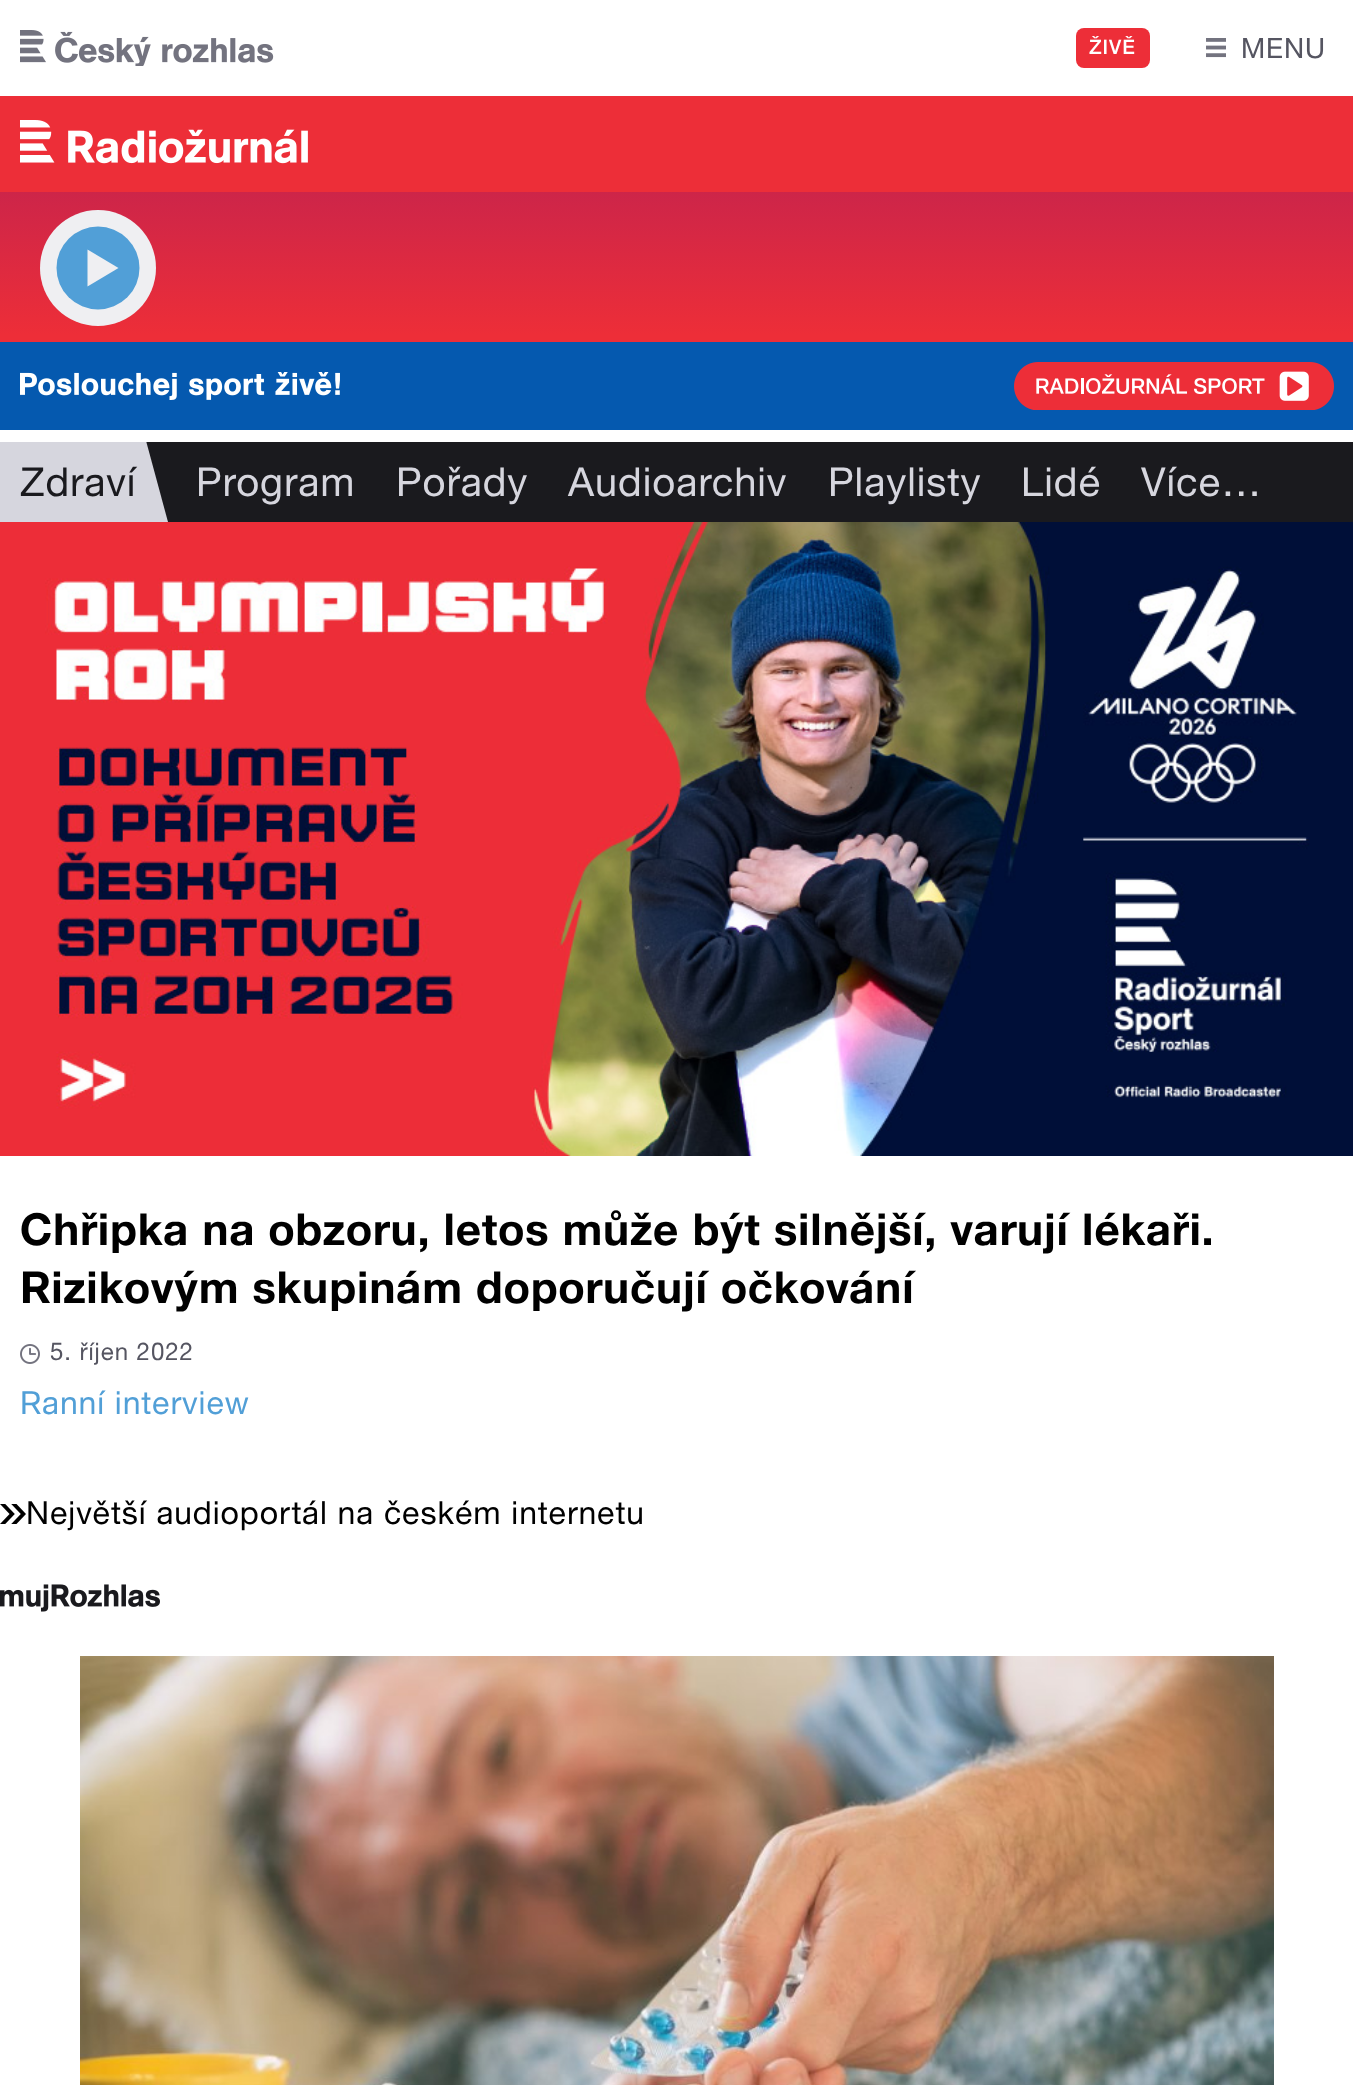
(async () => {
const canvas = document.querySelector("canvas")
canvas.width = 1353
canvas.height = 2085
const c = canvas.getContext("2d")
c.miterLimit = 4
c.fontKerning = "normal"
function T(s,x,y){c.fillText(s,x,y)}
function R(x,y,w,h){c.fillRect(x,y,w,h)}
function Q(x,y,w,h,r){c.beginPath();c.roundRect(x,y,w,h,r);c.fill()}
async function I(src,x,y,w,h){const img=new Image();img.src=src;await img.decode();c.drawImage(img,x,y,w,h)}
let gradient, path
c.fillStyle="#fff"
R(0,0,1353,2085)
await I("1.png",20,30,254,36)
c.fillStyle="#ed2e38"
Q(1076,28,74,40,8)
c.letterSpacing="0.95px"
c.font="500 20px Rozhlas"
c.fillStyle="#fff"
T("ŽIVĚ",1089,54)
await I("2.png",1206,38,20,20)
c.font="28px Rozhlas"
c.fillStyle="#555561"
T("MENU",1241,58)
c.fillStyle="#ed2e38"
R(0,96,1353,96)
await I("3.png",20,120,288,44)
gradient = c.createLinearGradient(677,192,677,430)
gradient.addColorStop(0,"#cd2549")
gradient.addColorStop(.6,"#ed2e38")
c.fillStyle = gradient
R(0,192,1353,150)
c.fillStyle="#efeff2"
c.beginPath()
c.arc(98,268,58,0,7)
c.fill()
c.fillStyle="#519fd7"
c.beginPath()
c.arc(98,268,41.5,0,7)
c.fill()
c.fillStyle="#efeff2"
path = new Path2D("M87.5 249.5l31 18.5l-31 18.5z")
c.fill(path)
c.fillStyle="#0559af"
R(0,342,1353,88)
await I("4.png",20,372,320,28)
await I("5.png",1014,362,320,48)
c.fillStyle="#d6d6de"
R(0,442,168,80)
c.font="40px Rozhlas"
c.fillStyle="#1a1a1e"
T("Zdraví",20,496)
c.save()
c.beginPath()
c.rect(0,442,176,80)
c.clip()
path = new Path2D("M145 437l97-26l26 97l-97 25z")
c.fill(path)
c.restore()
R(176,442,1177,80)
c.fillStyle="#d6d6de"
T("Program",196,496)
T("Pořady",396,496)
T("Audioarchiv",568,496)
T("Playlisty",828,496)
T("Lidé",1021,496)
T("Více…",1141,496)
await I("6.png",0,522,1353,634)
c.font="bold 44px Rozhlas"
c.fillStyle="#000"
T("Chřipka na obzoru, letos může být silnější, varují lékaři.",20,1245)
T("Rizikovým skupinám doporučují očkování",20,1303)
await I("7.png",20,1344,20,20)
c.font="24px Rozhlas"
c.fillStyle="#555561"
T("5. říjen 2022",50,1360)
c.font="32px Rozhlas"
c.fillStyle="#519fd7"
T("Ranní interview",20,1414)
await I("8.png",0,1504,26,20)
c.fillStyle="#000"
T("Největší audioportál na českém internetu",26,1524)
await I("9.png",0,1584,160,28)
await I("10.png",80,1656,1194,429)
})()
